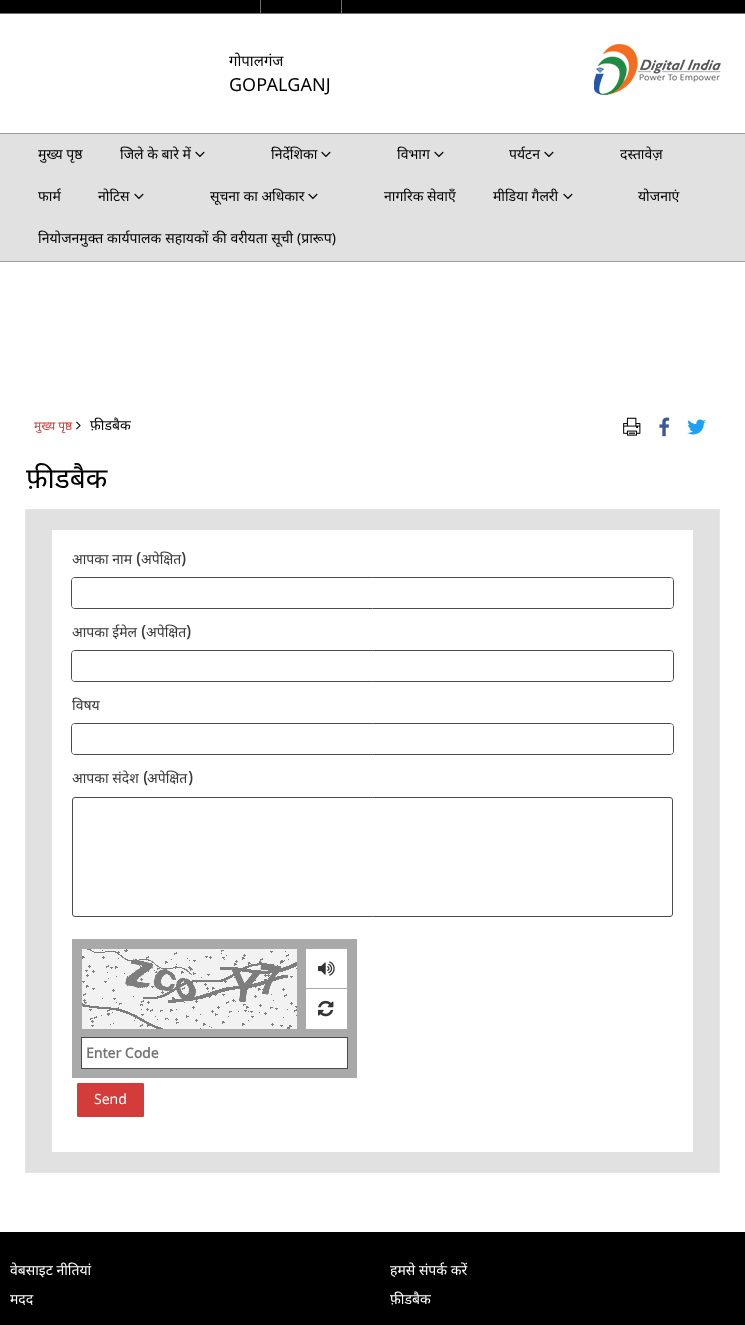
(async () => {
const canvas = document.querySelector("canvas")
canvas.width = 745
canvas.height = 1325
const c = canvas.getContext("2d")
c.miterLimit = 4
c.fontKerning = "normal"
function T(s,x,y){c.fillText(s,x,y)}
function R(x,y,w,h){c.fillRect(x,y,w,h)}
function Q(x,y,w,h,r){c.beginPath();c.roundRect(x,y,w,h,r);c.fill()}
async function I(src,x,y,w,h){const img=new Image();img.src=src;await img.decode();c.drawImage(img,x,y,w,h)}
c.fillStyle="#fff"
R(0,0,745,1325)
c.fillStyle="#000"
R(0,0,745,13)
c.fillStyle="#707070"
R(0,13,745,1)
R(260,0,1,13)
R(341,0,1,13)
c.font="15px Noto Sans"
c.fillStyle="#000"
T("गोपालगंज",229,66)
c.font="18px 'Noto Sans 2'"
T("GOPALGANJ",229,91)
await I("1.png",594,44,127,51)
c.fillStyle="#e1e1e1"
R(0,134,745,127)
c.fillStyle="#9e9e9e"
R(0,133,745,1)
R(0,261,745,1)
c.font="14px Noto Sans"
c.fillStyle="#000"
T("मुख्य पृष्ठ",38,159)
T("जिले के बारे में",120,159)
await I("2.png",195,151,10,7)
T("निर्देशिका",271,159)
await I("2.png",321,151,10,7)
T("विभाग",397,159)
await I("2.png",434,151,10,7)
T("पर्यटन",509,159)
await I("2.png",544,151,10,7)
T("दस्तावेज़",620,159)
T("फार्म",38,201)
T("नोटिस",98,201)
await I("2.png",134,193,10,7)
T("सूचना का अधिकार",210,201)
await I("2.png",308,193,10,7)
T("नागरिक सेवाएँ",384,201)
T("मीडिया गैलरी",493,201)
await I("2.png",563,193,10,7)
T("योजनाएं",638,201)
c.wordSpacing="0.25px"
T("नियोजनमुक्त कार्यपालक सहायकों की वरीयता सूची (प्रारूप)",38,243)
c.wordSpacing="0px"
c.font="12px Noto Sans"
c.fillStyle="#d43c3c"
T("मुख्य पृष्ठ",34,430)
await I("3.png",76,421,5,9)
c.font="14px Noto Sans"
c.fillStyle="#000"
T("फ़ीडबैक",90,430)
await I("4.png",623,417,18,19)
await I("5.png",659,417,11,20)
await I("6.png",687,419,19,16)
c.font="28px Noto Sans"
T("फ़ीडबैक",26,488)
c.strokeStyle="#e6e6e6"
c.strokeRect(25.5,509.5,694,663)
c.fillStyle="#e1e1e1"
R(26,510,693,662)
c.fillStyle="#fff"
R(52,530,641,622)
c.font="14px Noto Sans"
c.fillStyle="#363636"
T("आपका नाम",72,564)
c.font="bold 14px Noto Sans"
T("(",136,564)
c.font="14px Noto Sans"
T("अपेक्षित",141,564)
c.font="bold 14px Noto Sans"
T(")",181,564)
c.beginPath()
c.roundRect(71.5,577.5,602,31,3.5)
c.strokeStyle="#504949"
c.stroke()
c.fillStyle="#fff"
Q(72,578,601,30,3)
c.font="14px Noto Sans"
c.fillStyle="#363636"
T("आपका ईमेल",72,637)
c.font="bold 14px Noto Sans"
T("(",141,637)
c.font="14px Noto Sans"
T("अपेक्षित",146,637)
c.font="bold 14px Noto Sans"
T(")",186,637)
c.beginPath()
c.roundRect(71.5,650.5,602,31,3.5)
c.stroke()
c.fillStyle="#fff"
Q(72,651,601,30,3)
c.font="14px Noto Sans"
c.fillStyle="#363636"
T("विषय",72,710)
c.beginPath()
c.roundRect(71.5,723.5,602,31,3.5)
c.stroke()
c.fillStyle="#fff"
Q(72,724,601,30,3)
c.fillStyle="#363636"
T("आपका संदेश",72,783)
c.font="bold 14px Noto Sans"
T("(",143,783)
c.font="14px Noto Sans"
T("अपेक्षित",147,783)
c.font="bold 14px Noto Sans"
T(")",188,783)
c.beginPath()
c.roundRect(72.5,797.5,600,119,2.5)
c.stroke()
c.fillStyle="#a9a9a9"
R(72,939,285,139)
await I("7.png",82,949,215,80)
c.fillStyle="#fff"
R(306,949,41,80)
c.fillStyle="#a9a9a9"
R(306,988,41,1)
await I("8.png",318,961,17,15)
await I("9.png",318,1000,16,17)
c.strokeRect(81.5,1037.5,266,31)
c.fillStyle="#fff"
R(82,1038,265,30)
c.fillStyle="#757575"
T("Enter Code",86,1058)
c.fillStyle="#d43c3c"
c.beginPath()
c.roundRect(77.5,1083.5,66,33,.5)
c.fill()
c.strokeStyle="#d43c3c"
c.stroke()
c.font="14px 'Noto Sans 2'"
c.fillStyle="#fff"
T("Send",94,1104)
c.fillStyle="#000"
R(0,1232,745,93)
c.font="14px Noto Sans"
c.fillStyle="#fff"
T("वेबसाइट नीतियां",10,1275)
T("हमसे संपर्क करें",390,1275)
T("मदद",10,1304)
T("फ़ीडबैक",390,1304)
})()
